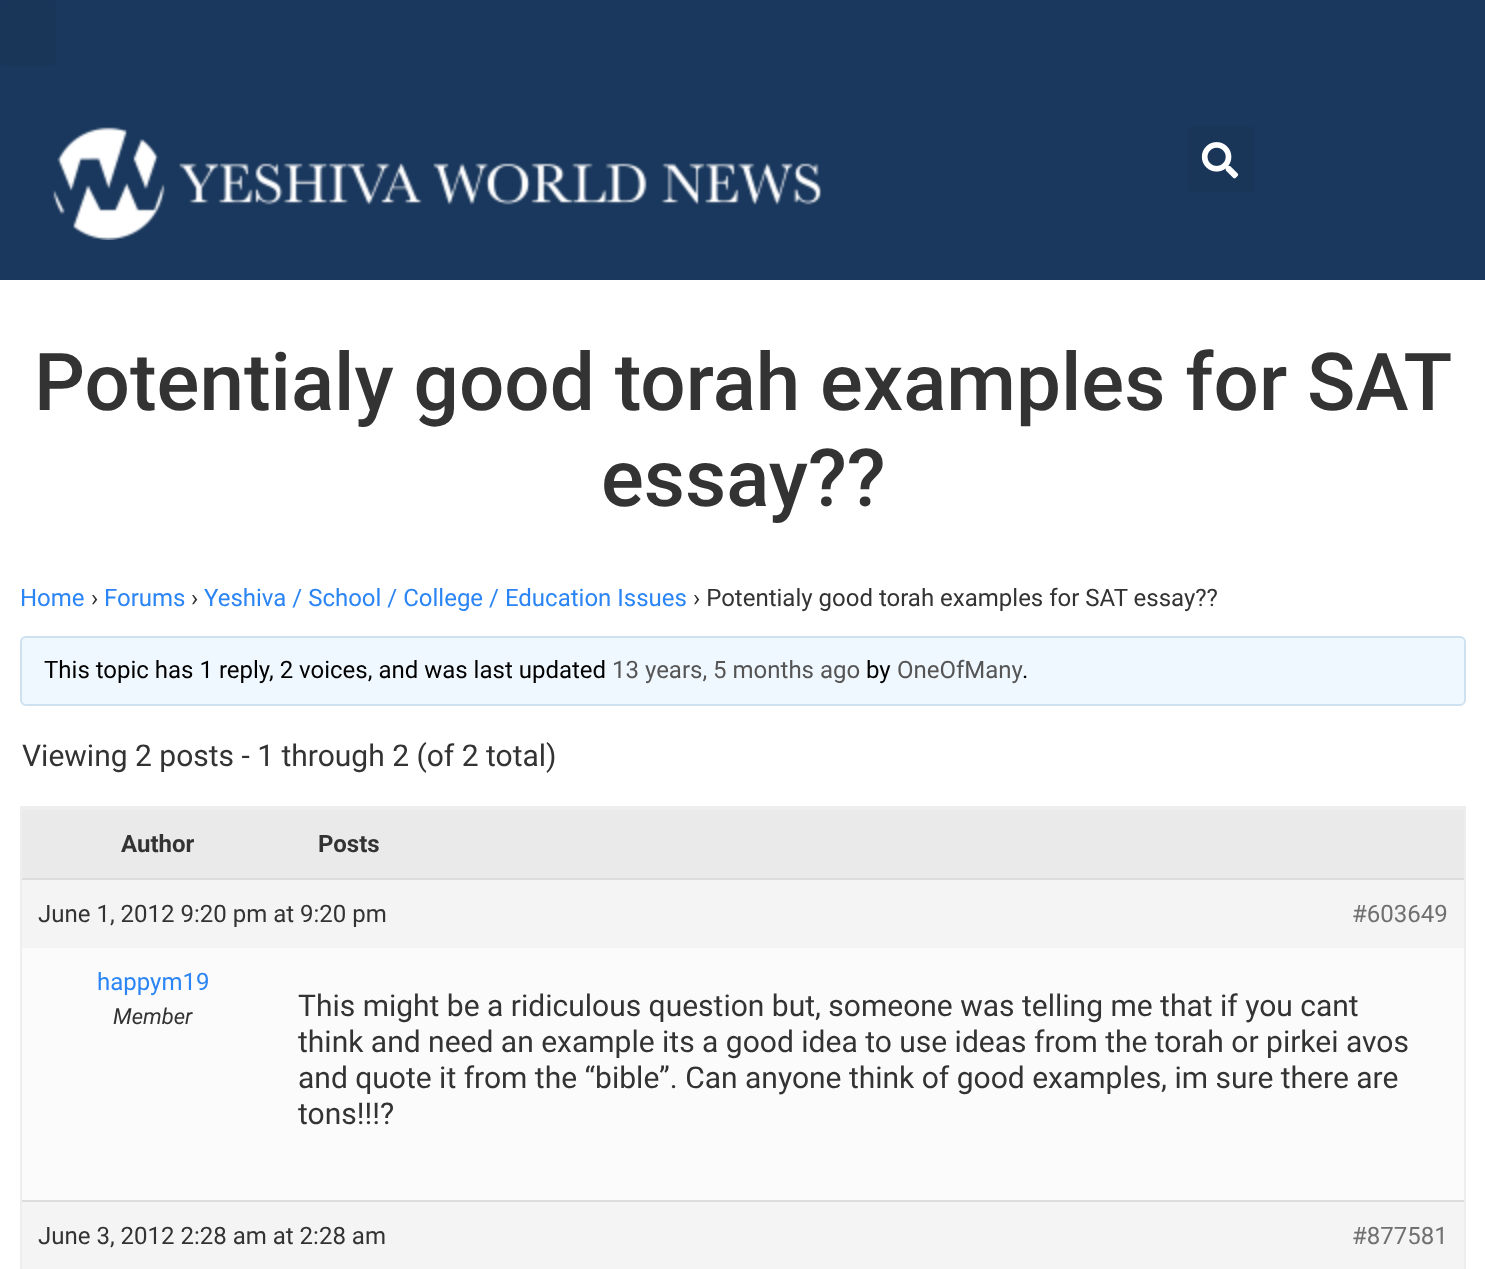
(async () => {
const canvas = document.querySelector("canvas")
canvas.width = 1485
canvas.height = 1269
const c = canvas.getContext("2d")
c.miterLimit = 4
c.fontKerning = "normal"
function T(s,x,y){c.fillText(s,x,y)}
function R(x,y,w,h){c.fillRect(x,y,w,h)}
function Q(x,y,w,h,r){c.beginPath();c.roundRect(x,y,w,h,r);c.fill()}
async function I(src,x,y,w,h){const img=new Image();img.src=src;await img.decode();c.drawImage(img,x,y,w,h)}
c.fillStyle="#fff"
R(0,0,1485,1269)
c.fillStyle="#1a385d"
R(0,0,1485,280)
c.fillStyle="#193558"
Q(0,0,56,66,6)
await I("1.png",52,127,770,113)
Q(1188,126,66,66,6)
await I("2.png",1201,142,38,37)
c.font="500 80px Roboto"
c.fillStyle="#333"
T("Potentialy good torah examples for SAT",34,410)
T("essay??",601,506)
c.font="24px Roboto"
c.fillStyle="#2b85f4"
T("Home",20,606)
c.fillStyle="#333"
T("›",91,606)
c.fillStyle="#2b85f4"
T("Forums",104,606)
c.fillStyle="#333"
T("›",191,606)
c.fillStyle="#2b85f4"
T("Yeshiva / School / College / Education Issues",204,606)
c.fillStyle="#333"
T("› Potentialy good torah examples for SAT essay??",693,606)
c.fillStyle="#f0f8ff"
c.beginPath()
c.roundRect(21,637,1444,68,5)
c.fill()
c.strokeStyle="#cee1ef"
c.lineWidth=2
c.stroke()
c.fillStyle="#000"
T("This topic has 1 reply, 2 voices, and was last updated",44,678)
c.fillStyle="#555"
T("13 years, 5 months ago",612,678)
c.fillStyle="#000"
T("by",866,678)
c.fillStyle="#555"
T("OneOfMany",897,678)
c.fillStyle="#000"
T(".",1022,678)
c.font="30px Roboto"
c.fillStyle="#333"
T("Viewing 2 posts - 1 through 2 (of 2 total)",22,766)
c.strokeStyle="#eee"
c.strokeRect(21,807,1444,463)
c.fillStyle="#eaeaea"
R(22,810,1442,68)
c.fillStyle="#eee"
R(22,808,1442,2)
c.font="bold 24px Roboto"
c.fillStyle="#333"
T("Author",121,852)
T("Posts",318,852)
c.fillStyle="#f4f4f4"
R(22,880,1442,68)
c.fillStyle="#ddd"
R(22,878,1442,2)
c.font="24px Roboto"
c.fillStyle="#333"
T("June 1, 2012 9:20 pm at 9:20 pm",38,922)
c.fillStyle="#707070"
T("#603649",1352,922)
c.fillStyle="#fbfbfb"
R(22,948,1442,252)
c.fillStyle="#2b85f4"
T("happym19",97,990)
c.font="italic 22px Roboto"
c.fillStyle="#333"
T("Member",113,1024)
c.font="30px Roboto"
T("This might be a ridiculous question but, someone was telling me that if you cant",298,1016)
T("think and need an example its a good idea to use ideas from the torah or pirkei avos",298,1052)
T("and quote it from the “bible”. Can anyone think of good examples, im sure there are",298,1088)
T("tons!!!?",298,1124)
c.fillStyle="#f4f4f4"
R(22,1202,1442,67)
c.fillStyle="#ddd"
R(22,1200,1442,2)
c.font="24px Roboto"
c.fillStyle="#333"
T("June 3, 2012 2:28 am at 2:28 am",38,1244)
c.fillStyle="#707070"
T("#877581",1352,1244)
})()
